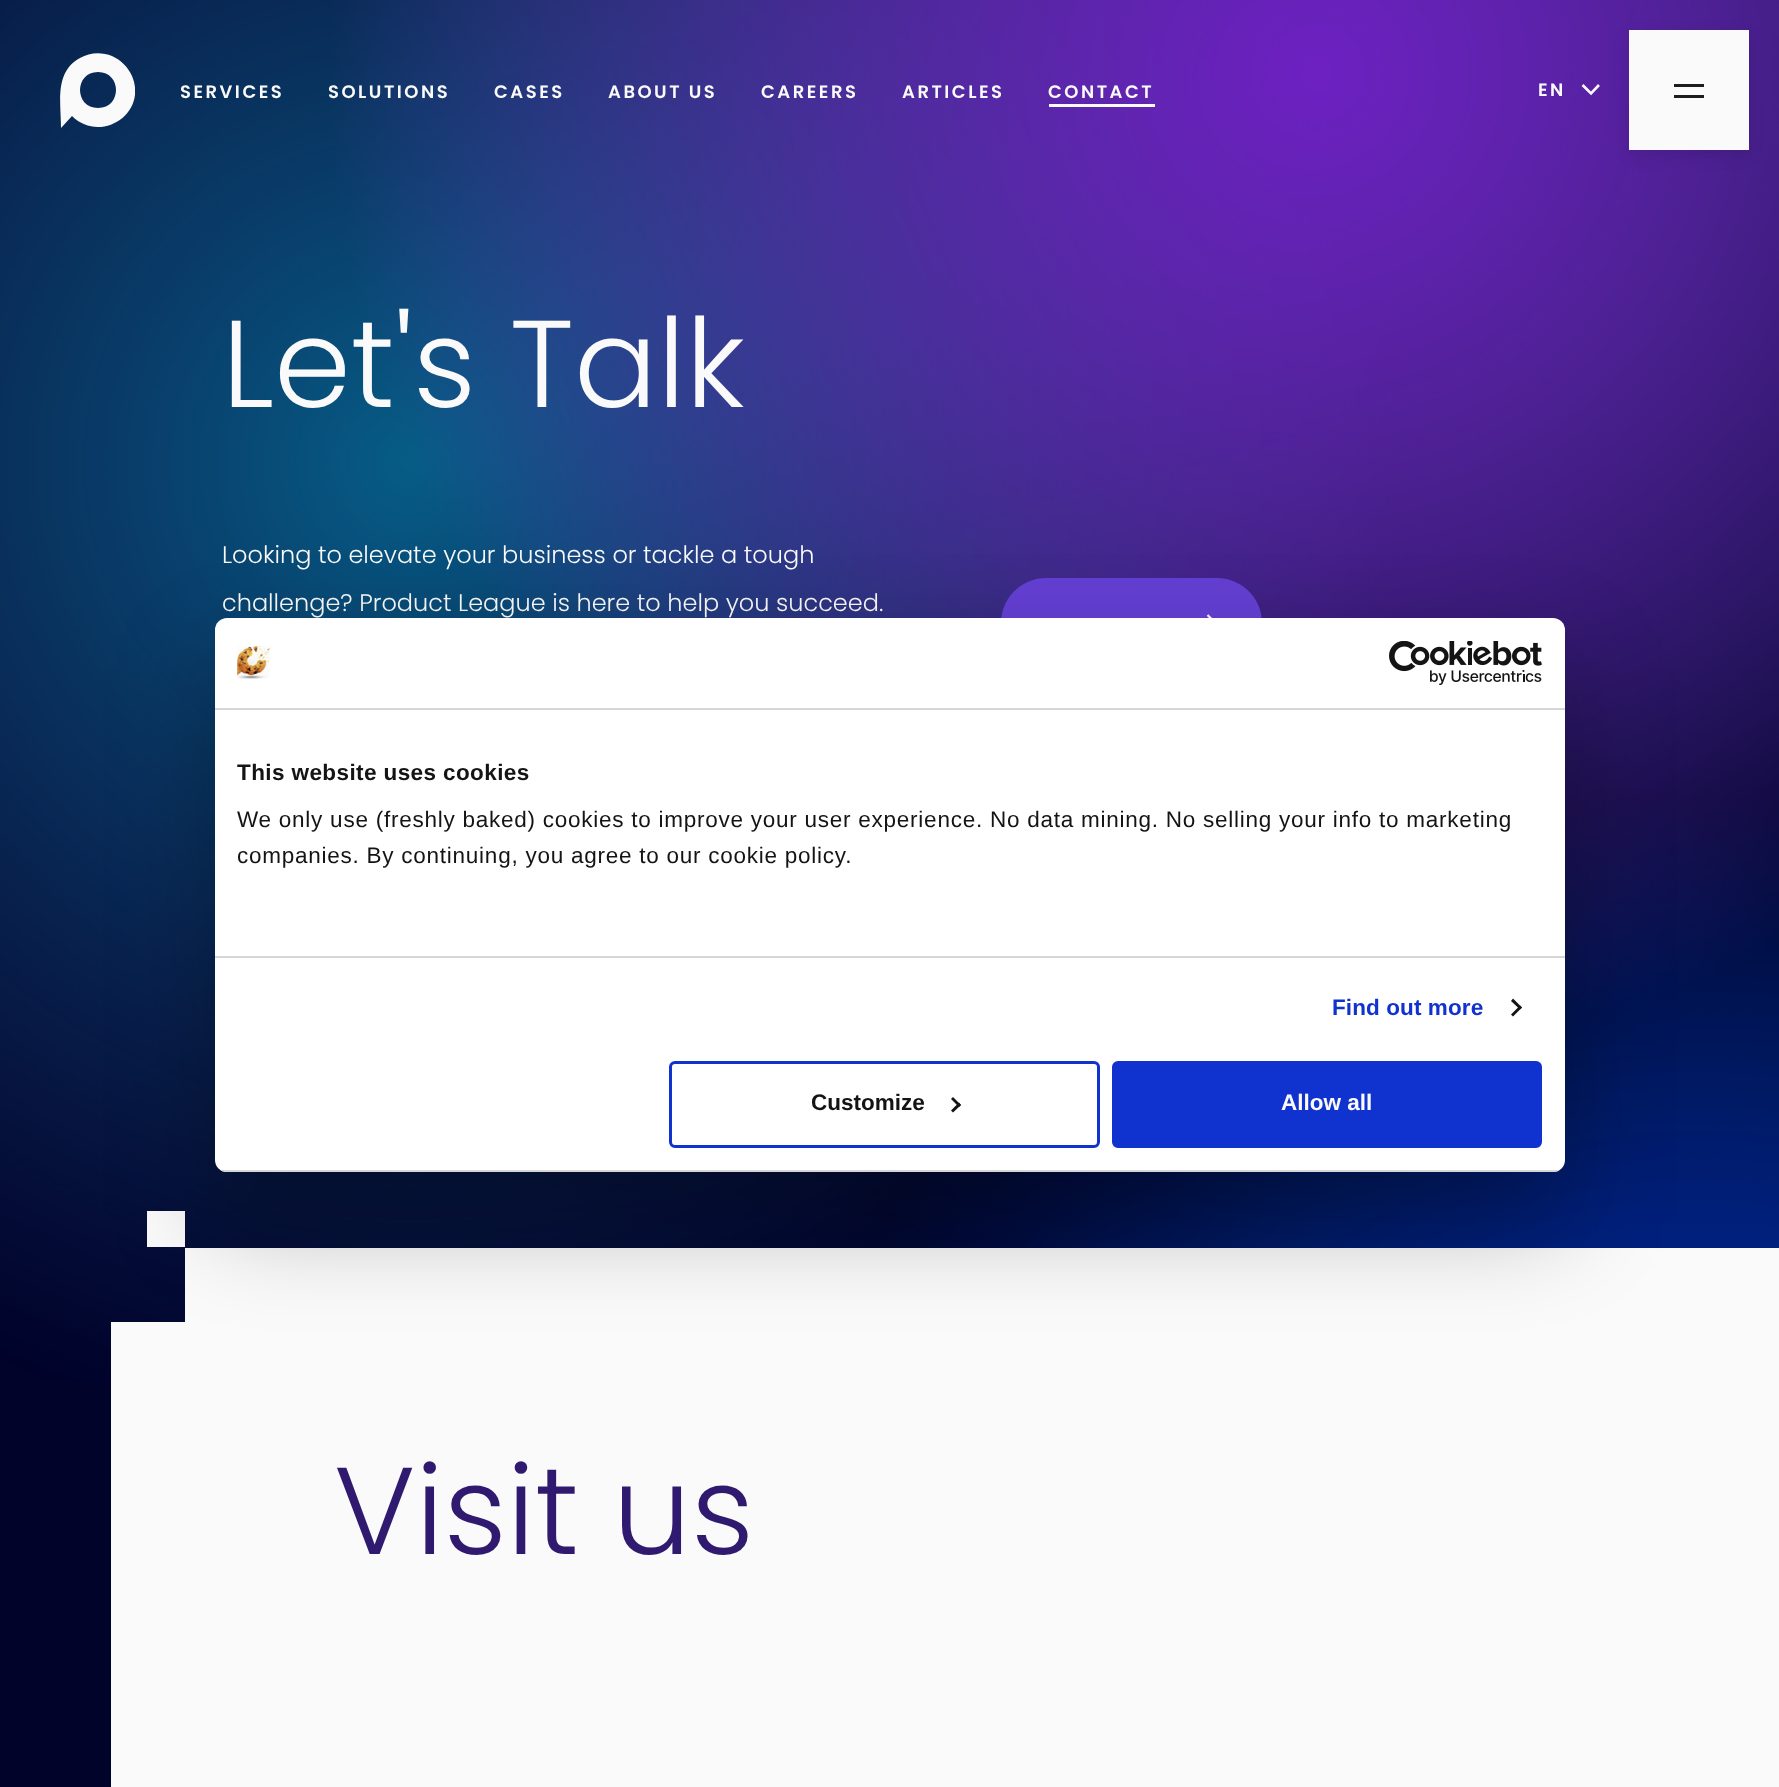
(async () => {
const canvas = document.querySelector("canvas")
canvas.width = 1779
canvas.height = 1787
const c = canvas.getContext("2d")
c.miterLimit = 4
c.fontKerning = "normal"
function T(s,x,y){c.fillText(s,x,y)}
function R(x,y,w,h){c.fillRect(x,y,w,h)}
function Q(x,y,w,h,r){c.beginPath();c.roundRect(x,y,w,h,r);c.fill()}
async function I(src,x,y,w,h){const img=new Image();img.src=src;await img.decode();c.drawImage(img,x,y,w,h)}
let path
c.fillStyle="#01032b"
R(0,0,1779,1787)
await I("1.png",0,0,1779,1382)
c.save()
c.beginPath()
c.rect(60,53,75,75)
c.clip()
c.fillStyle="#fafafa"
path = new Path2D("M98 108c-24 0-24-36 0-36c24 0 24 36 0 36m-26 8c28 28 76-2 60-40c-4-9-11-16-20-20c-10-4-22-4-32 2c-26 14-19 45-19 70z")
c.fill(path)
c.restore()
c.letterSpacing="2.5px"
c.font="600 18px Poppins"
c.fillStyle="#fafafa"
T("SERVICES",180,98)
T("SOLUTIONS",328,98)
T("CASES",494,98)
T("ABOUT US",608,98)
T("CAREERS",761,98)
T("ARTICLES",902,98)
T("CONTACT",1048,98)
R(1049,104,106,3)
T("EN",1538,96)
path = new Path2D("M1599 85l-8 8.5l-8.5-8.5")
c.strokeStyle="#fafafa"
c.lineWidth=2.6
c.stroke(path)
c.fillStyle="#0000001a"
c.filter="blur(7.5px)"
c.beginPath()
c.rect(1629,36,120,120)
c.fill()
c.filter="none"
c.fillStyle="#fafafa"
R(1629,30,120,120)
c.fillStyle="#1b1d1f"
R(1674,84,30,3)
R(1674,95,30,3)
c.letterSpacing="0px"
c.font="300 123.5px Poppins"
c.fillStyle="#fafafa"
T("Let's Talk",222,407)
c.font="300 24px Poppins"
T("Looking to elevate your business or tackle a tough",222,563)
T("challenge? Product League is here to help you succeed.",222,611)
c.fillStyle="#643fd3"
Q(1001,578,261,90,45)
path = new Path2D("M1207.5 615l7.5 7.5l-7.5 7.5")
c.lineWidth=2.2
c.stroke(path)
c.fillStyle="#fafafa"
R(147,1211,38,36)
R(185,1248,1594,74)
R(111,1322,1668,465)
c.font="300 123.5px Poppins"
c.fillStyle="#2f1a70"
T("Visit us",334,1554)
c.fillStyle="#0000004d"
c.filter="blur(51px)"
c.beginPath()
c.roundRect(215,666,1350,554,12)
c.fill()
c.filter="none"
c.fillStyle="#fff"
Q(215,618,1350,554,12)
c.fillStyle="#d6d6d6"
R(215,708,1350,2)
await I("2.png",237,646,33,33)
await I("3.png",1389,641,153,44)
R(215,956,1350,2)
c.letterSpacing="0.4px"
c.font="bold 22.5px Liberation Sans"
c.fillStyle="#141414"
T("This website uses cookies",237,780)
c.letterSpacing="0.75px"
c.font="22.5px Liberation Sans"
T("We only use (freshly baked) cookies to improve your user experience. No data mining. No selling your info to marketing",237,827)
T("companies. By continuing, you agree to our cookie policy.",237,863)
c.letterSpacing="0.1px"
c.font="bold 22.5px Liberation Sans"
c.fillStyle="#1032cf"
T("Find out more",1332,1015)
c.fillStyle="#141414"
path = new Path2D("M1513 998.5l9 9l-2 2l-9-8.5z")
c.fill(path)
path = new Path2D("M1520 1005.5l2 2l-9 9l-2-2z")
c.fill(path)
c.save()
c.beginPath()
c.roundRect(215,618,1350,554,12)
c.clip()
c.fillStyle="#d6d6d6"
R(215,1170,1350,2)
c.restore()
c.beginPath()
c.roundRect(670.5,1062.5,428,84,4.5)
c.strokeStyle="#1032cf"
c.lineWidth=3
c.stroke()
c.letterSpacing="0px"
T("Customize",811,1110)
path = new Path2D("M953 1097l8 8l-2 2l-8-8z")
c.fill(path)
path = new Path2D("M959 1102.5l2 2.5l-8 7.5l-2-2z")
c.fill(path)
c.fillStyle="#1032cf"
c.beginPath()
c.roundRect(1113.5,1062.5,427,84,4.5)
c.fill()
c.stroke()
c.fillStyle="#fafafa"
T("Allow all",1281,1110)
})()
